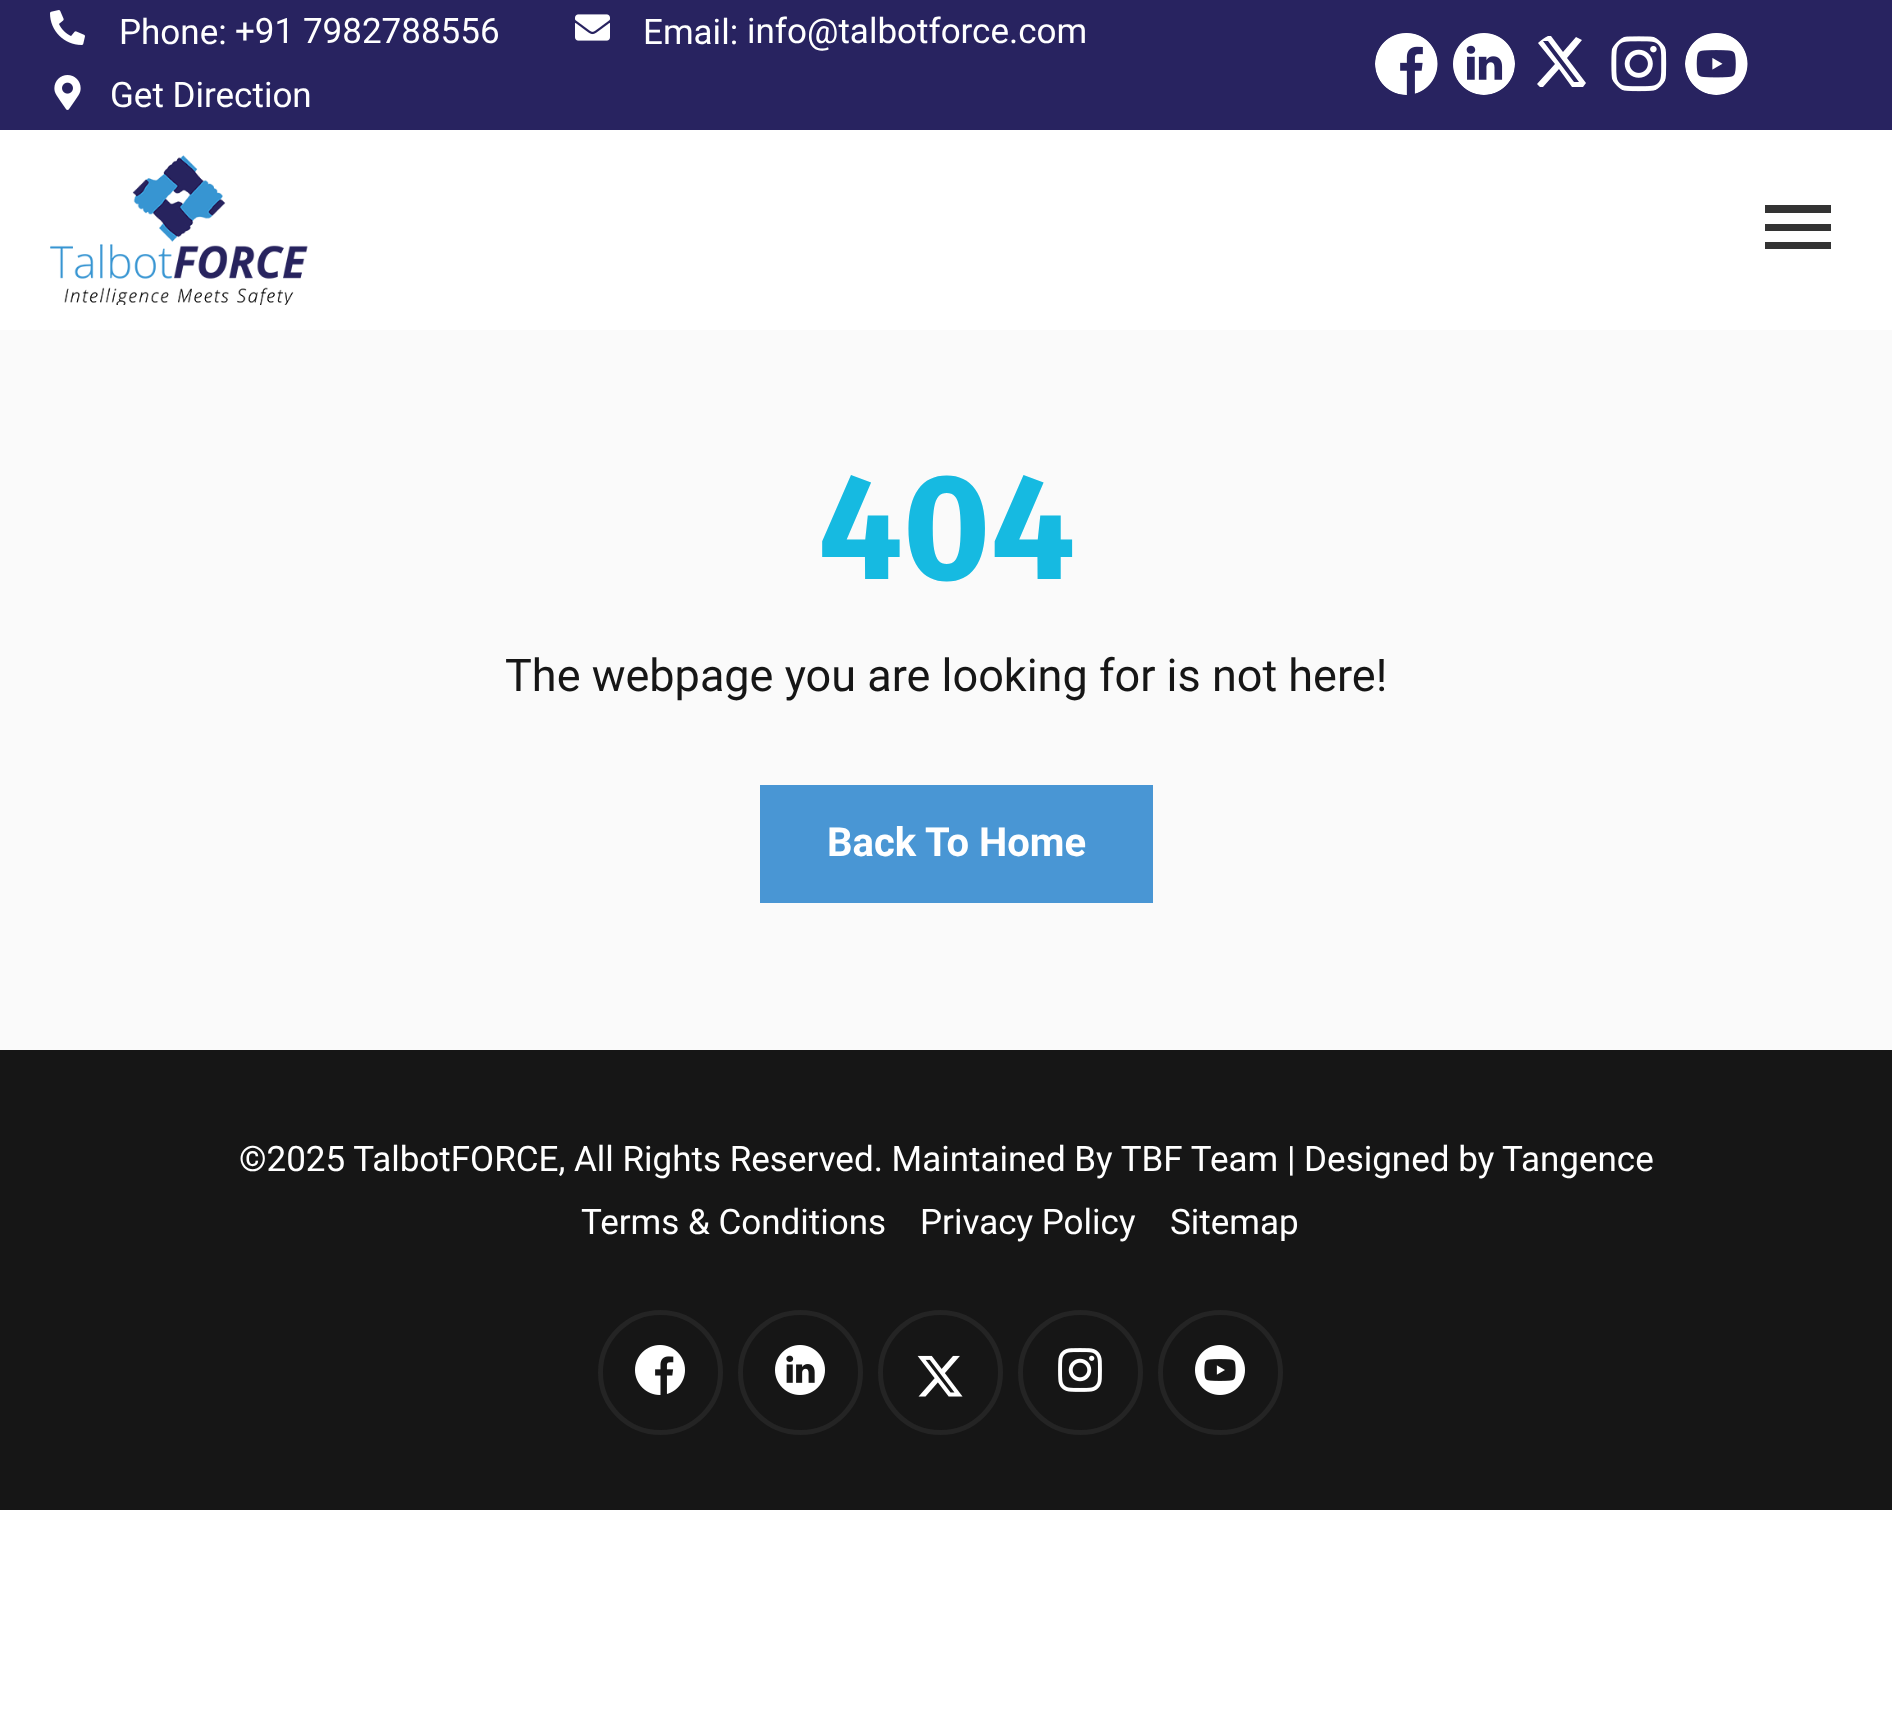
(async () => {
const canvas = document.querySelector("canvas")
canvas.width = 1892
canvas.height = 1712
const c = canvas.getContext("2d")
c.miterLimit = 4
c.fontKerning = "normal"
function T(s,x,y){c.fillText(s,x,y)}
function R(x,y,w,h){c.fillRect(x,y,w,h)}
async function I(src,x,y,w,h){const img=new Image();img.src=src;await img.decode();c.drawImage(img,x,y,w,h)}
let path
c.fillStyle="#fff"
R(0,0,1892,1712)
c.fillStyle="#282360"
R(0,0,1892,130)
await I("1.png",50,10,35,35)
c.font="35px Roboto"
c.fillStyle="#fff"
T("Phone:",119,44)
T("+91 7982788556",235,43)
await I("2.png",575,14,35,27)
T("Email:",643,44)
T("info@talbotforce.com",747,43)
await I("3.png",54,75,27,35)
T("Get Direction",110,107)
await I("4.png",1375,33,63,62)
await I("5.png",1453,33,62,62)
path = new Path2D("M1538 43c3-3 6-5 10-7h3l12 16l13-15l6 3l-15 18l19 25l-3 4h-11l-13-18l-16 18h-3l-3-3l18-20zm36 39l-31-41h5l31 41z")
c.fill(path,"evenodd")
await I("6.png",1611,36,56,56)
await I("7.png",1685,33,63,62)
await I("8.png",50,155,258,150)
c.fillStyle="#333"
path = new Path2D("M1765 249v-7h66v7zm0-18v-7h66v7zm0-26h66v8h-66z")
c.fill(path)
c.fillStyle="#fafafa"
R(0,330,1892,720)
c.font="bold 150px Fira Sans"
c.fillStyle="#16bae1"
T("404",818,579)
c.font="45px Roboto"
c.fillStyle="#161616"
T("The webpage you are looking for is not here!",505,691)
c.fillStyle="#4996d4"
R(760,785,393,118)
c.font="bold 40px Roboto"
c.fillStyle="#fff"
T("Back To Home",827,856)
c.fillStyle="#161616"
R(0,1050,1892,460)
c.font="35px Roboto"
c.fillStyle="#fff"
T("©2025 TalbotFORCE, All Rights Reserved. Maintained By TBF Team | Designed by",239,1171)
T("Tangence",1502,1171)
T("Terms & Conditions",581,1234)
T("Privacy Policy",920,1234)
T("Sitemap",1170,1234)
c.beginPath()
c.arc(660.5,1372.5,60,0,7)
c.strokeStyle="#242424"
c.lineWidth=5
c.stroke()
await I("9.png",635,1345,50,50)
c.beginPath()
c.arc(800.5,1372.5,60,0,7)
c.stroke()
await I("10.png",775,1345,50,50)
c.beginPath()
c.arc(940.5,1372.5,60,0,7)
c.stroke()
await I("11.png",917,1355,46,42)
c.beginPath()
c.arc(1080.5,1372.5,60,0,7)
c.stroke()
await I("12.png",1058,1348,44,44)
c.beginPath()
c.arc(1220.5,1372.5,60,0,7)
c.stroke()
await I("13.png",1195,1345,50,50)
})()
